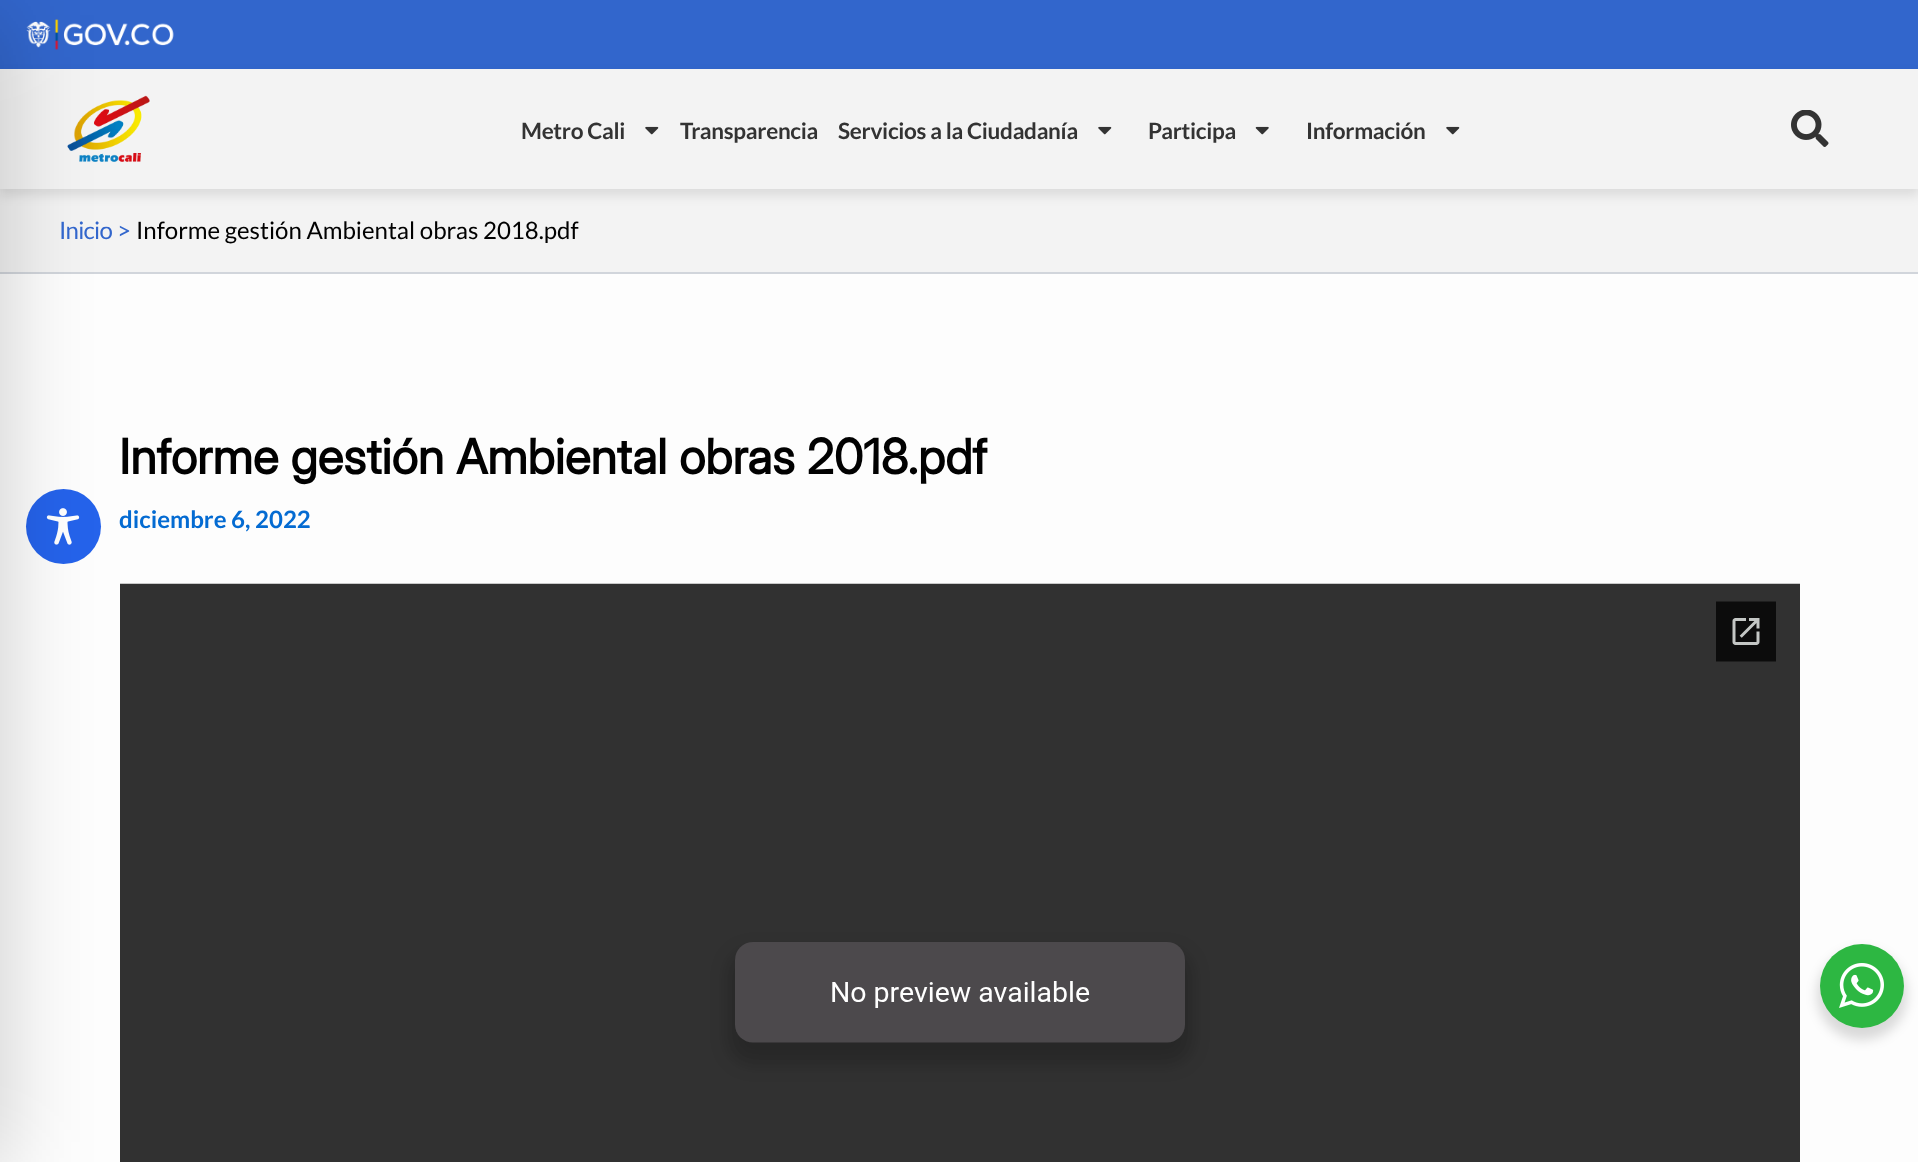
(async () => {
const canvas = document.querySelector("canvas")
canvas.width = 1918
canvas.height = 1162
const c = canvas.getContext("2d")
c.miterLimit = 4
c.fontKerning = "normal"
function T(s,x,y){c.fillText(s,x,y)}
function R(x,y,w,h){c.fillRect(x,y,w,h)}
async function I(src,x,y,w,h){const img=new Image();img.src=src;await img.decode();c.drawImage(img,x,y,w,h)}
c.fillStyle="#fdfdfd"
R(0,0,1918,1162)
c.fillStyle="#3266cc"
R(0,0,1918,69)
await I("1.png",26,19,148,31)
c.fillStyle="#f3f3f3"
R(0,189,1918,83)
c.fillStyle="#0000001a"
c.filter="blur(6px)"
c.beginPath()
c.rect(0,75,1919,120)
c.fill()
c.filter="none"
c.fillStyle="#f3f3f3"
R(0,69,1918,120)
await I("2.png",67,95,84,67)
c.fillStyle="#d1d5db"
R(0,272,1918,2)
await I("6.png",120,583,1680,579)
c.fillStyle="#2563eb"
c.beginPath()
c.arc(63.5,526.5,37.5,0,7)
c.fill()
await I("7.png",46,508,34,37)
c.fillStyle="#00000033"
c.filter="blur(45px)"
c.beginPath()
c.rect(-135,15,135,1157)
c.fill()
c.filter="none"
c.letterSpacing="-0.3px"
c.font="bold 22.5px Lato"
c.fillStyle="#333"
T("Metro Cali",521,139)
await I("3.png",645,126,14,9)
T("Transparencia",680,139)
T("Servicios a la Ciudadanía",838,139)
await I("3.png",1098,126,14,9)
T("Participa",1148,139)
await I("4.png",1255,126,14,9)
T("Información",1306,139)
await I("3.png",1446,126,14,9)
await I("5.png",1791,110,38,37)
c.letterSpacing="-0.75px"
c.font="24px Lato"
c.fillStyle="#3266cc"
T("Inicio",59,239)
c.letterSpacing="0px"
T(">",117,239)
c.fillStyle="#010101"
T("Informe gestión Ambiental obras 2018.pdf",136,239)
c.font="bold 48px Inter"
T("Informe gestión Ambiental obras 2018.pdf",119,474)
c.font="bold 24px Lato"
c.fillStyle="#046bd2"
T("diciembre 6, 2022",119,528)
c.fillStyle="#00000024"
c.filter="blur(6px)"
c.beginPath()
c.roundRect(1817,950,90,90,45)
c.fill()
c.filter="none"
c.fillStyle="#2db742"
c.beginPath()
c.arc(1862,986,42,0,7)
c.fill()
await I("8.png",1839,963,45,45)
})()
